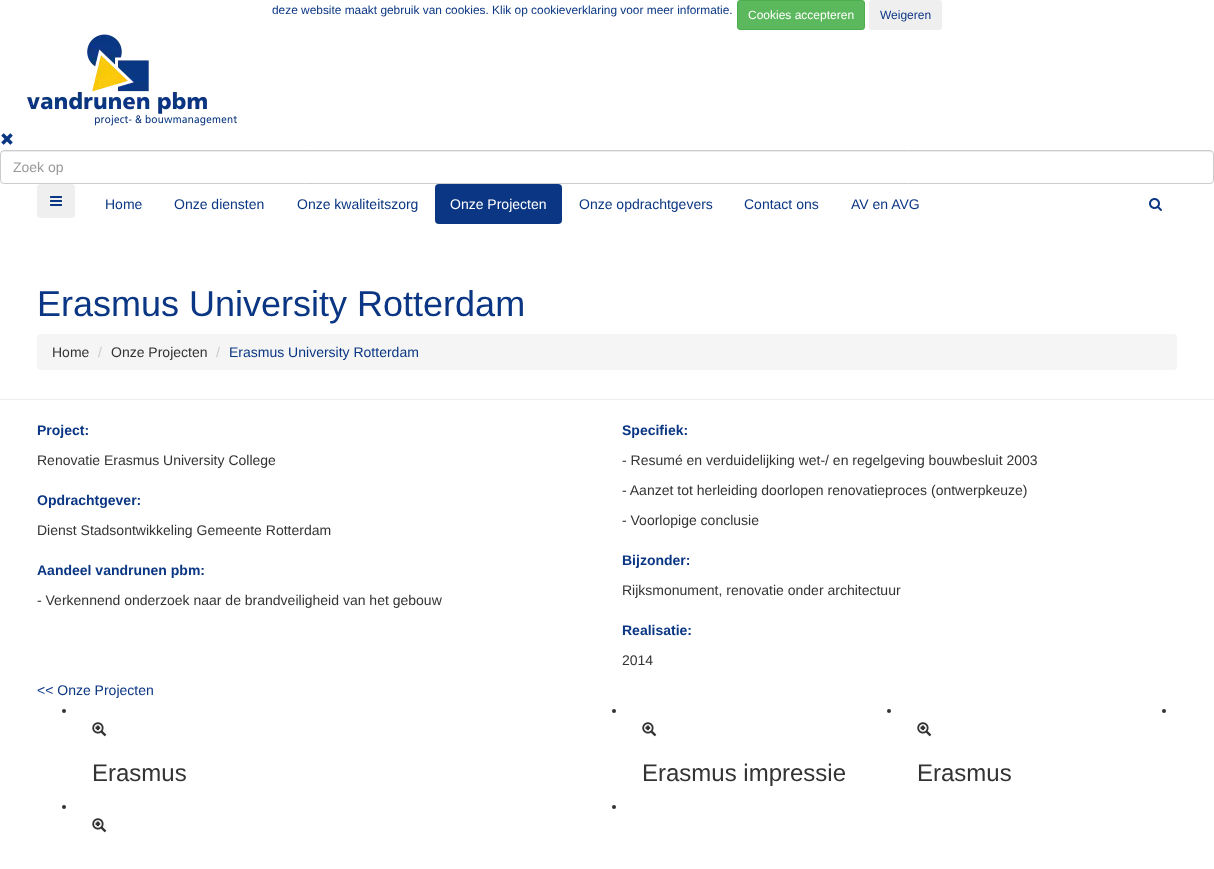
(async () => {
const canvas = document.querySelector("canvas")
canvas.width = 1214
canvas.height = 869
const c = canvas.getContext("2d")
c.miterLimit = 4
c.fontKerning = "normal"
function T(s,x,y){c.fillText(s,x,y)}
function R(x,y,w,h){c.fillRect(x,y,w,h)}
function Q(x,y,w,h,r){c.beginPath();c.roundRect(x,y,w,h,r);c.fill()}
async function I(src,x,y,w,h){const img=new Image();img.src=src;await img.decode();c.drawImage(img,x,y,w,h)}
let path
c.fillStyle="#fff"
R(0,0,1214,869)
c.font="11.9px Liberation Sans"
c.fillStyle="#0a3683"
T("deze website maakt gebruik van cookies. Klik op cookieverklaring voor meer informatie.",272,14)
c.fillStyle="#5cb85c"
c.beginPath()
c.roundRect(737.5,.5,127,29,2.5)
c.fill()
c.strokeStyle="#4cae4c"
c.stroke()
c.font="12px Liberation Sans"
c.fillStyle="#fff"
T("Cookies accepteren",748,19)
c.fillStyle="#efefef"
Q(869,0,73,30,3)
c.fillStyle="#0a3683"
T("Weigeren",880,19)
await I("1.png",27,34,210,92)
await I("2.png",1,133,12,12)
c.fillStyle="#ececec"
path = new Path2D("M4 152h1206c2 0 3 1 3 3v-1c0-2-1-3-3-3h-1206c-2 0-3 1-3 3v1c0-2 1-3 3-3z")
c.fill(path)
c.beginPath()
c.roundRect(.5,150.5,1213,33,3.5)
c.strokeStyle="#ccc"
c.stroke()
c.font="14px Liberation Sans"
c.fillStyle="#999"
T("Zoek op",13,172)
c.fillStyle="#efefef"
Q(37,184,38,34,4)
await I("3.png",50,196,12,10)
c.fillStyle="#0a3683"
T("Home",105,209)
T("Onze diensten",174,209)
T("Onze kwaliteitszorg",297,209)
Q(435,184,127,40,4)
c.fillStyle="#fff"
T("Onze Projecten",450,209)
c.fillStyle="#0a3683"
T("Onze opdrachtgevers",579,209)
T("Contact ons",744,209)
T("AV en AVG",851,209)
await I("4.png",1149,198,13,13)
c.fillStyle="#eee"
R(0,399,1214,1)
c.font="36px Liberation Sans"
c.fillStyle="#0a3683"
T("Erasmus University Rotterdam",37,316)
c.fillStyle="#f5f5f5"
Q(37,334,1140,36,4)
c.font="14px Liberation Sans"
c.fillStyle="#333"
T("Home",52,357)
c.fillStyle="#ccc"
T("/",98,357)
c.fillStyle="#333"
T("Onze Projecten",111,357)
c.fillStyle="#ccc"
T("/",216,357)
c.fillStyle="#0a3683"
T("Erasmus University Rotterdam",229,357)
c.font="bold 14px Liberation Sans"
T("Project:",37,435)
c.font="14px Liberation Sans"
c.fillStyle="#333"
T("Renovatie Erasmus University College",37,465)
c.font="bold 14px Liberation Sans"
c.fillStyle="#0a3683"
T("Opdrachtgever:",37,505)
c.font="14px Liberation Sans"
c.fillStyle="#333"
T("Dienst Stadsontwikkeling Gemeente Rotterdam",37,535)
c.font="bold 14px Liberation Sans"
c.fillStyle="#0a3683"
T("Aandeel vandrunen pbm:",37,575)
c.font="14px Liberation Sans"
c.fillStyle="#333"
T("- Verkennend onderzoek naar de brandveiligheid van het gebouw",37,605)
c.font="bold 14px Liberation Sans"
c.fillStyle="#0a3683"
T("Specifiek:",622,435)
c.font="14px Liberation Sans"
c.fillStyle="#333"
T("- Resumé en verduidelijking wet-/ en regelgeving bouwbesluit 2003",622,465)
T("- Aanzet tot herleiding doorlopen renovatieproces (ontwerpkeuze)",622,495)
T("- Voorlopige conclusie",622,525)
c.font="bold 14px Liberation Sans"
c.fillStyle="#0a3683"
T("Bijzonder:",622,565)
c.font="14px Liberation Sans"
c.fillStyle="#333"
T("Rijksmonument, renovatie onder architectuur",622,595)
c.font="bold 14px Liberation Sans"
c.fillStyle="#0a3683"
T("Realisatie:",622,635)
c.font="14px Liberation Sans"
c.fillStyle="#333"
T("2014",622,665)
c.fillStyle="#0a3683"
T("<< Onze Projecten",37,695)
c.fillStyle="#333"
c.beginPath()
c.arc(1164,711,2,0,7)
c.fill()
c.beginPath()
c.arc(64,711,2,0,7)
c.fill()
await I("5.png",92,722,15,15)
c.font="24px Liberation Sans"
T("Erasmus",92,781)
c.beginPath()
c.arc(614,711,2,0,7)
c.fill()
await I("5.png",642,722,15,15)
T("Erasmus impressie",642,781)
c.beginPath()
c.arc(889,711,2,0,7)
c.fill()
await I("5.png",917,722,15,15)
T("Erasmus",917,781)
c.beginPath()
c.arc(64,807,2,0,7)
c.fill()
await I("5.png",92,818,15,15)
c.beginPath()
c.arc(614,807,2,0,7)
c.fill()
})()
